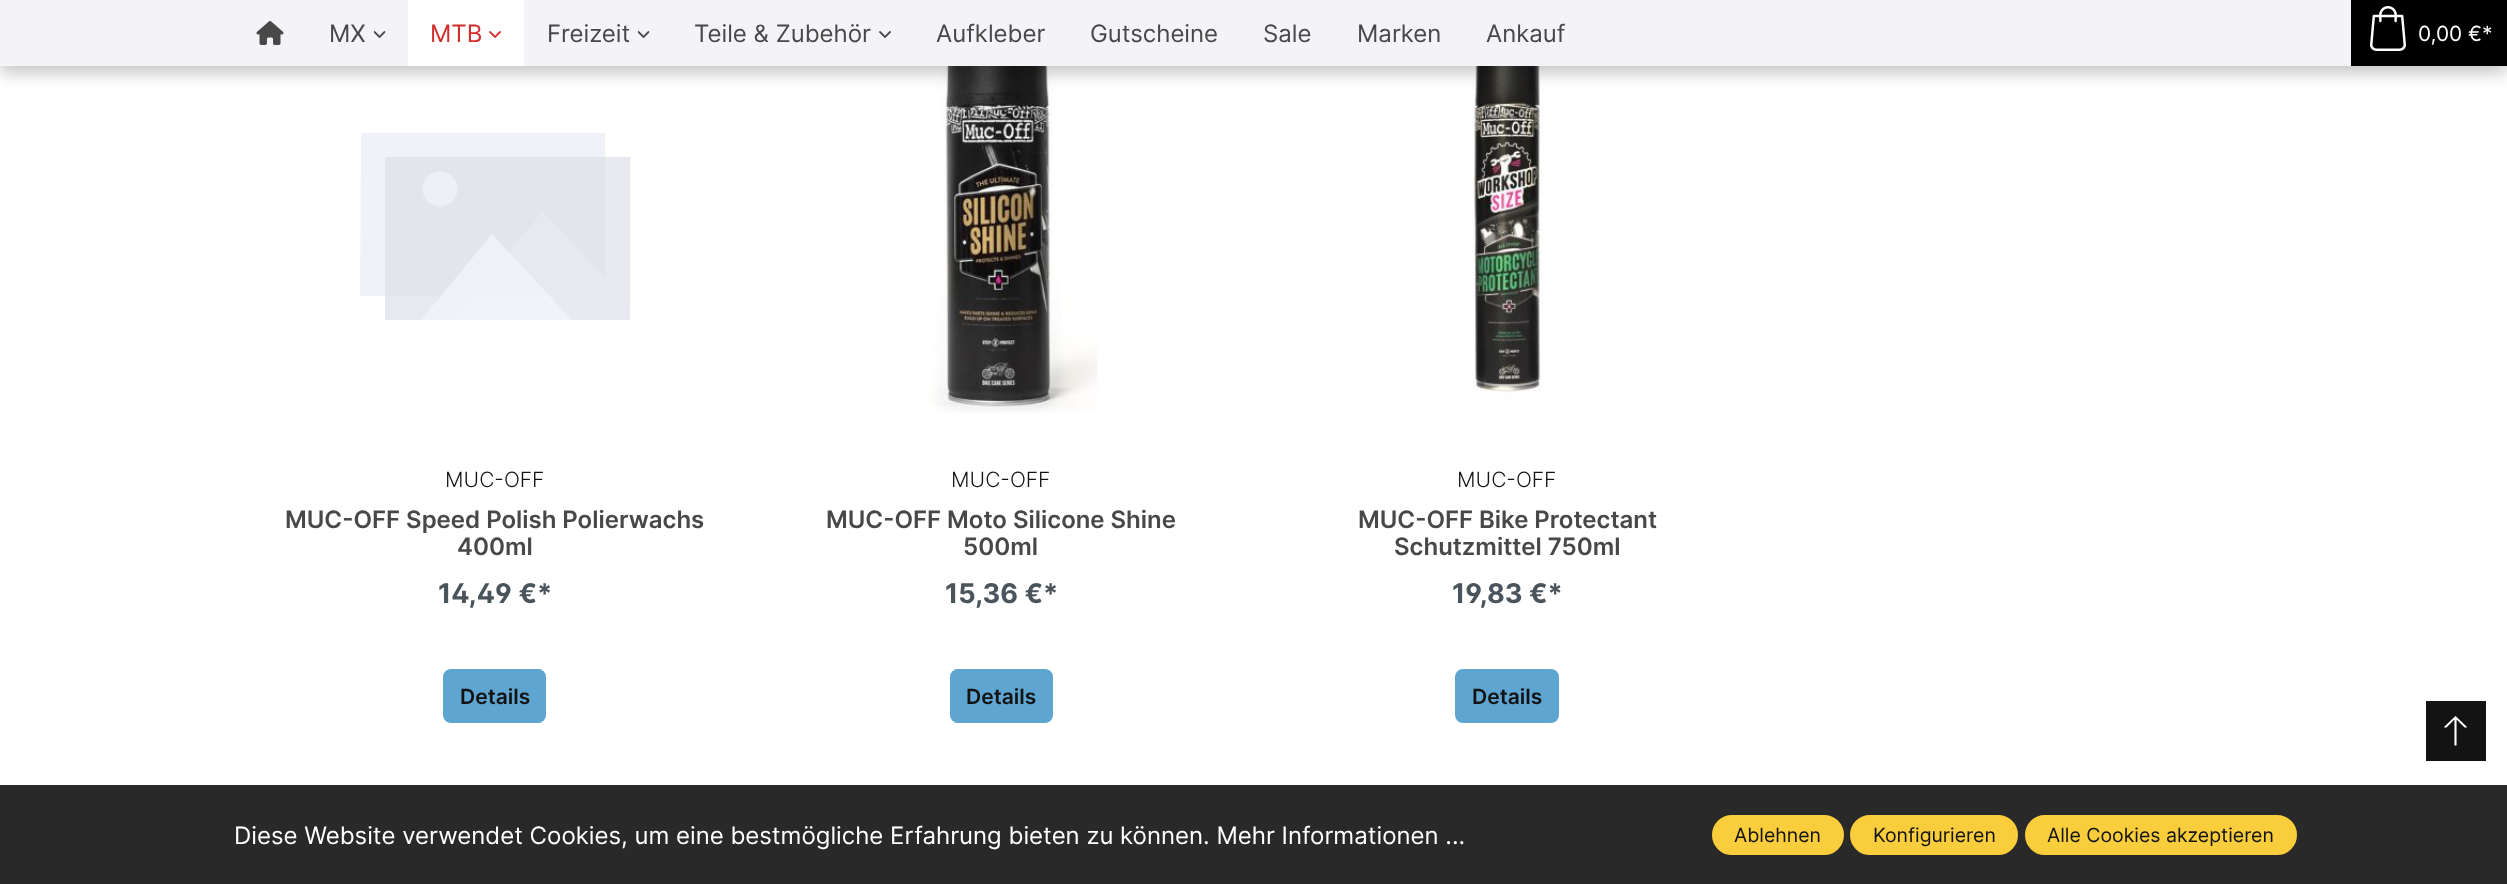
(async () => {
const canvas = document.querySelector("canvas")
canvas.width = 2507
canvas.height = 884
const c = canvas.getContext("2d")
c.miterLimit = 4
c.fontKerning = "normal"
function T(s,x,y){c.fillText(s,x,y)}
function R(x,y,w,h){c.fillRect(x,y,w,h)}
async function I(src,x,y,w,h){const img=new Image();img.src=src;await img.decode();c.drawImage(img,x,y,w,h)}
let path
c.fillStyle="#fff"
R(0,0,2507,884)
await I("6.png",928,66,170,347)
await I("7.png",1472,66,70,332)
c.fillStyle="#00000040"
c.filter="blur(9px)"
c.beginPath()
c.rect(0,6,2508,66)
c.fill()
c.filter="none"
c.fillStyle="#f4f3f7"
R(0,0,2351,66)
await I("1.png",256,21,28,24)
c.font="24px Inter"
c.fillStyle="#484848"
T("MX",329,42)
await I("2.png",374,31,12,7)
c.fillStyle="#fff"
R(408,0,116,66)
c.fillStyle="#d12e2e"
T("MTB",430,42)
await I("3.png",489,31,12,7)
c.fillStyle="#484848"
T("Freizeit",547,42)
await I("2.png",638,31,12,7)
T("Teile & Zubehör",694,42)
await I("4.png",879,31,12,7)
T("Aufkleber",936,42)
T("Gutscheine",1090,42)
T("Sale",1263,42)
T("Marken",1357,42)
T("Ankauf",1486,42)
c.fillStyle="#000"
R(2351,0,156,66)
await I("5.png",2370,6,36,45)
c.font="21px Inter"
c.fillStyle="#fff"
T("0,00 €*",2418,41)
c.fillStyle="#f1f2f7"
path = new Path2D("M360 296l1-163h244v163z")
c.fill(path)
c.fillStyle="#dadde5a6"
R(385,157,245,163)
c.fillStyle="#e9ebf2a6"
path = new Path2D("M452 320h178v-15l-87-94z")
c.fill(path,"evenodd")
c.fillStyle="#eef0f6"
c.beginPath()
c.arc(440,189,17.5,0,7)
c.fill()
c.fillStyle="#f5f7fca6"
path = new Path2D("M492 234l-71 86h151z")
c.fill(path,"evenodd")
c.font="300 21px Inter"
c.fillStyle="#131313"
T("MUC-OFF",445,487)
c.font="600 24px Inter"
c.fillStyle="#484848"
T("MUC-OFF Speed Polish Polierwachs",285,528)
T("400ml",457,555)
c.font="bold 27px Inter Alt"
c.fillStyle="#4a545b"
T("14,49 €*",438,603)
c.fillStyle="#5ea5d1"
c.beginPath()
c.roundRect(444,670,101,52,7)
c.fill()
c.strokeStyle="#5ea5d1"
c.lineWidth=2
c.stroke()
c.font="600 21px Inter"
c.fillStyle="#131313"
T("Details",460,704)
c.font="300 21px Inter"
T("MUC-OFF",951,487)
c.font="600 24px Inter"
c.fillStyle="#484848"
T("MUC-OFF Moto Silicone Shine",826,528)
T("500ml",963,555)
c.font="bold 27px Inter"
c.fillStyle="#4a545b"
T("15,36 €*",945,603)
c.fillStyle="#5ea5d1"
c.beginPath()
c.roundRect(951,670,101,52,7)
c.fill()
c.stroke()
c.font="600 21px Inter"
c.fillStyle="#131313"
T("Details",966,704)
c.font="300 21px Inter"
T("MUC-OFF",1457,487)
c.font="600 24px Inter"
c.fillStyle="#484848"
T("MUC-OFF Bike Protectant",1358,528)
T("Schutzmittel 750ml",1394,555)
c.font="bold 27px Inter Alt"
c.fillStyle="#4a545b"
T("19,83 €*",1452,603)
c.fillStyle="#5ea5d1"
c.beginPath()
c.roundRect(1456,670,102,52,7)
c.fill()
c.stroke()
c.font="600 21px Inter"
c.fillStyle="#131313"
T("Details",1472,704)
R(2426,701,60,60)
await I("8.png",2444,716,23,30)
c.fillStyle="#292929"
R(0,785,2507,99)
c.font="24px Inter"
c.fillStyle="#fff"
T("Diese Website verwendet Cookies, um eine bestmögliche Erfahrung bieten zu können. Mehr Informationen ...",234,844)
c.fillStyle="#f9cd3b"
c.beginPath()
c.roundRect(1713,816,130,38,19)
c.fill()
c.strokeStyle="#f9cd3b"
c.stroke()
c.font="19.5px Inter"
c.fillStyle="#131313"
T("Ablehnen",1734,842)
c.fillStyle="#f9cd3b"
c.beginPath()
c.roundRect(1851,816,166,38,19)
c.fill()
c.stroke()
c.fillStyle="#131313"
T("Konfigurieren",1873,842)
c.fillStyle="#f9cd3b"
c.beginPath()
c.roundRect(2026,816,270,38,19)
c.fill()
c.stroke()
c.fillStyle="#131313"
T("Alle Cookies akzeptieren",2047,842)
})()
